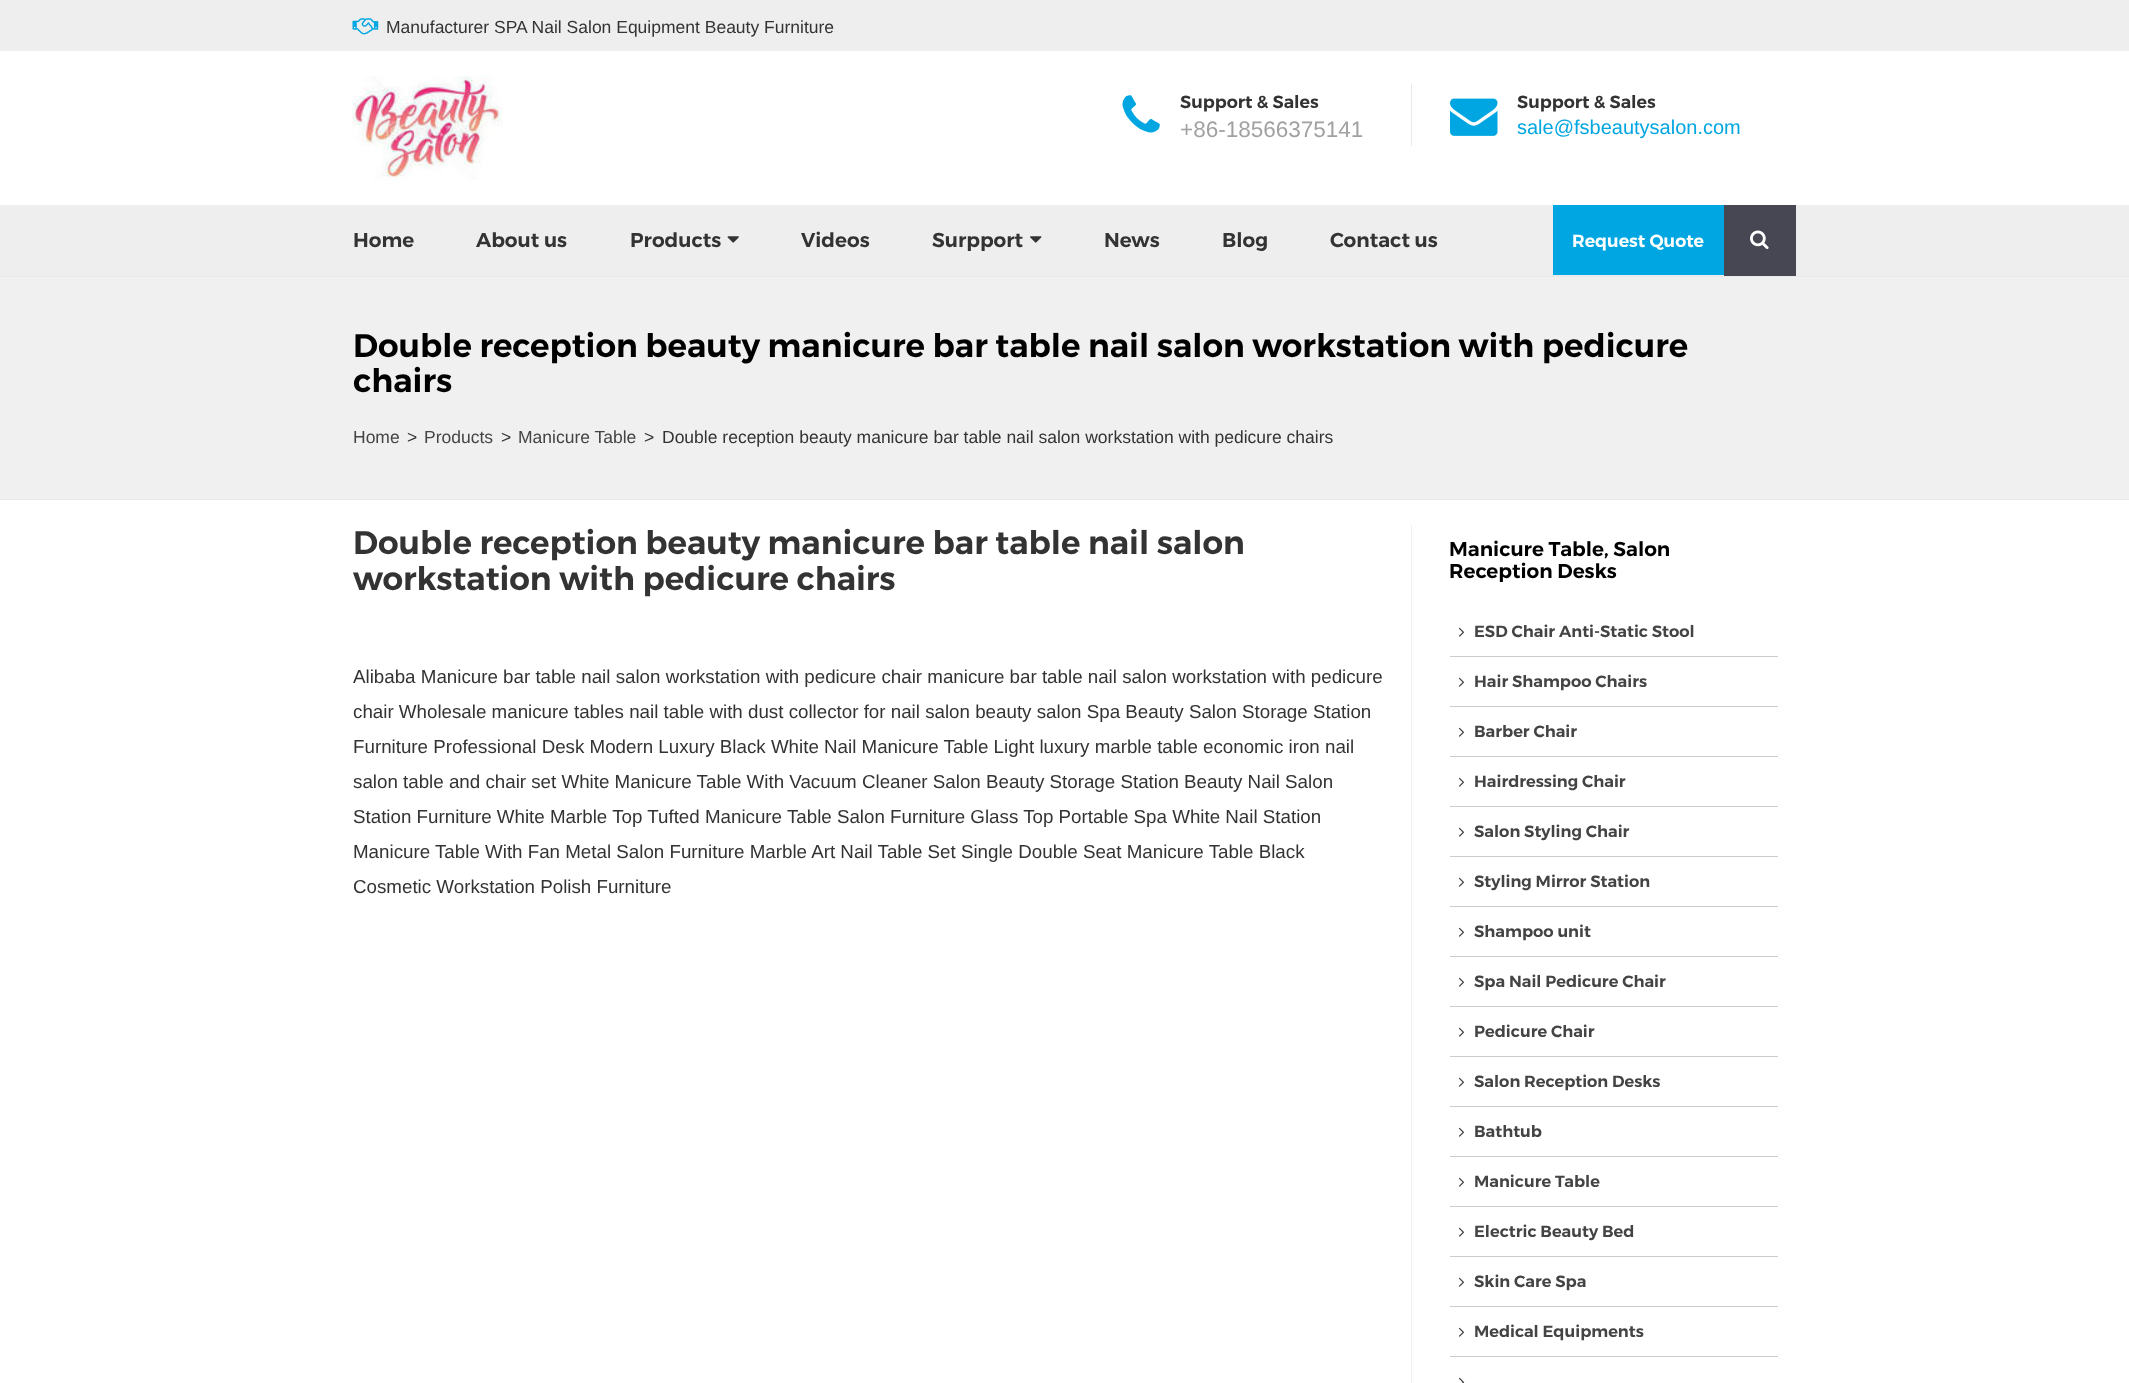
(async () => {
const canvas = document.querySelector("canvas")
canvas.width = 2129
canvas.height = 1383
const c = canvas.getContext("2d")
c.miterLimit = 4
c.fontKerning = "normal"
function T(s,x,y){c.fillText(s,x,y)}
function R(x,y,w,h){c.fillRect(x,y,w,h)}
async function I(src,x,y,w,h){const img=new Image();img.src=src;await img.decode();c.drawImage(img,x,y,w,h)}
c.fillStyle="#fff"
R(0,0,2129,1383)
c.fillStyle="#eee"
R(0,0,2129,51)
await I("1.png",352,18,27,17)
c.font="17.5px Liberation Sans"
c.fillStyle="#333"
T("Manufacturer SPA Nail Salon Equipment Beauty Furniture",386,33)
await I("2.png",352,76,151,104)
c.fillStyle="#eaeaea"
R(1411,84,1,62)
await I("3.png",1122,95,38,38)
c.font="600 17.5px Montserrat"
c.fillStyle="#333"
T("Support & Sales",1180,108)
c.font="22.5px Liberation Sans"
c.fillStyle="#a2a1a1"
T("+86-18566375141",1180,137)
await I("4.png",1450,98,48,38)
c.font="600 17.5px Montserrat"
c.fillStyle="#333"
T("Support & Sales",1517,108)
c.font="20px Liberation Sans"
c.fillStyle="#00a6e2"
T("sale@fsbeautysalon.com",1517,134)
c.fillStyle="#eee"
R(0,205,2129,71)
c.font="600 20px Montserrat"
c.fillStyle="#333"
T("Home",353,247)
T("About us",476,247)
T("Products",630,247)
await I("5.png",727,236,12,7)
T("Videos",801,247)
T("Surpport",932,247)
await I("6.png",1030,236,12,7)
T("News",1104,247)
T("Blog",1222,247)
T("Contact us",1330,247)
c.fillStyle="#00a6e2"
R(1553,205,171,70)
c.font="600 17.5px Montserrat"
c.fillStyle="#fff"
T("Request Quote",1572,247)
c.fillStyle="#474753"
R(1724,205,72,71)
await I("7.png",1750,230,19,20)
c.fillStyle="#f0f0f0"
R(0,277,2129,222)
c.fillStyle="#e9e9e9"
R(0,276,2129,1)
R(0,499,2129,1)
c.font="600 32.5px Montserrat"
c.fillStyle="#000"
T("Double reception beauty manicure bar table nail salon workstation with pedicure",353,357)
T("chairs",353,392)
c.font="17.5px Liberation Sans"
c.fillStyle="#444"
T("Home",353,443)
c.fillStyle="#333"
T(">",407,443)
c.fillStyle="#444"
T("Products",424,443)
c.fillStyle="#333"
T(">",501,443)
c.fillStyle="#444"
T("Manicure Table",518,443)
c.fillStyle="#333"
T(">",644,443)
T("Double reception beauty manicure bar table nail salon workstation with pedicure chairs",662,443)
c.fillStyle="#f0f0f0"
R(1411,525,1,858)
c.font="600 32.5px Montserrat"
c.fillStyle="#333"
T("Double reception beauty manicure bar table nail salon",353,554)
T("workstation with pedicure chairs",353,590)
c.font="18.75px Liberation Sans"
T("Alibaba Manicure bar table nail salon workstation with pedicure chair manicure bar table nail salon workstation with pedicure",353,683)
T("chair Wholesale manicure tables nail table with dust collector for nail salon beauty salon Spa Beauty Salon Storage Station",353,718)
T("Furniture Professional Desk Modern Luxury Black White Nail Manicure Table Light luxury marble table economic iron nail",353,753)
T("salon table and chair set White Manicure Table With Vacuum Cleaner Salon Beauty Storage Station Beauty Nail Salon",353,788)
T("Station Furniture White Marble Top Tufted Manicure Table Salon Furniture Glass Top Portable Spa White Nail Station",353,823)
T("Manicure Table With Fan Metal Salon Furniture Marble Art Nail Table Set Single Double Seat Manicure Table Black",353,858)
T("Cosmetic Workstation Polish Furniture",353,893)
c.font="600 20px Montserrat"
c.fillStyle="#000"
T("Manicure Table, Salon",1449,556)
T("Reception Desks",1449,578)
c.fillStyle="#ccc"
R(1450,656,328,1)
await I("8.png",1458,627,7,10)
c.font="600 16.25px Montserrat"
c.fillStyle="#444"
T("ESD Chair Anti-Static Stool",1474,637)
c.fillStyle="#ccc"
R(1450,706,328,1)
await I("8.png",1458,677,7,10)
c.fillStyle="#444"
T("Hair Shampoo Chairs",1474,687)
c.fillStyle="#ccc"
R(1450,756,328,1)
await I("8.png",1458,727,7,10)
c.fillStyle="#444"
T("Barber Chair",1474,737)
c.fillStyle="#ccc"
R(1450,806,328,1)
await I("8.png",1458,777,7,10)
c.fillStyle="#444"
T("Hairdressing Chair",1474,787)
c.fillStyle="#ccc"
R(1450,856,328,1)
await I("8.png",1458,827,7,10)
c.fillStyle="#444"
T("Salon Styling Chair",1474,837)
c.fillStyle="#ccc"
R(1450,906,328,1)
await I("8.png",1458,877,7,10)
c.fillStyle="#444"
T("Styling Mirror Station",1474,887)
c.fillStyle="#ccc"
R(1450,956,328,1)
await I("8.png",1458,927,7,10)
c.fillStyle="#444"
T("Shampoo unit",1474,937)
c.fillStyle="#ccc"
R(1450,1006,328,1)
await I("8.png",1458,977,7,10)
c.fillStyle="#444"
T("Spa Nail Pedicure Chair",1474,987)
c.fillStyle="#ccc"
R(1450,1056,328,1)
await I("8.png",1458,1027,7,10)
c.fillStyle="#444"
T("Pedicure Chair",1474,1037)
c.fillStyle="#ccc"
R(1450,1106,328,1)
await I("8.png",1458,1077,7,10)
c.fillStyle="#444"
T("Salon Reception Desks",1474,1087)
c.fillStyle="#ccc"
R(1450,1156,328,1)
await I("8.png",1458,1127,7,10)
c.fillStyle="#444"
T("Bathtub",1474,1137)
c.fillStyle="#ccc"
R(1450,1206,328,1)
await I("8.png",1458,1177,7,10)
c.fillStyle="#444"
T("Manicure Table",1474,1187)
c.fillStyle="#ccc"
R(1450,1256,328,1)
await I("8.png",1458,1227,7,10)
c.fillStyle="#444"
T("Electric Beauty Bed",1474,1237)
c.fillStyle="#ccc"
R(1450,1306,328,1)
await I("8.png",1458,1277,7,10)
c.fillStyle="#444"
T("Skin Care Spa",1474,1287)
c.fillStyle="#ccc"
R(1450,1356,328,1)
await I("8.png",1458,1327,7,10)
c.fillStyle="#444"
T("Medical Equipments",1474,1337)
await I("9.png",1458,1377,7,6)
})()
